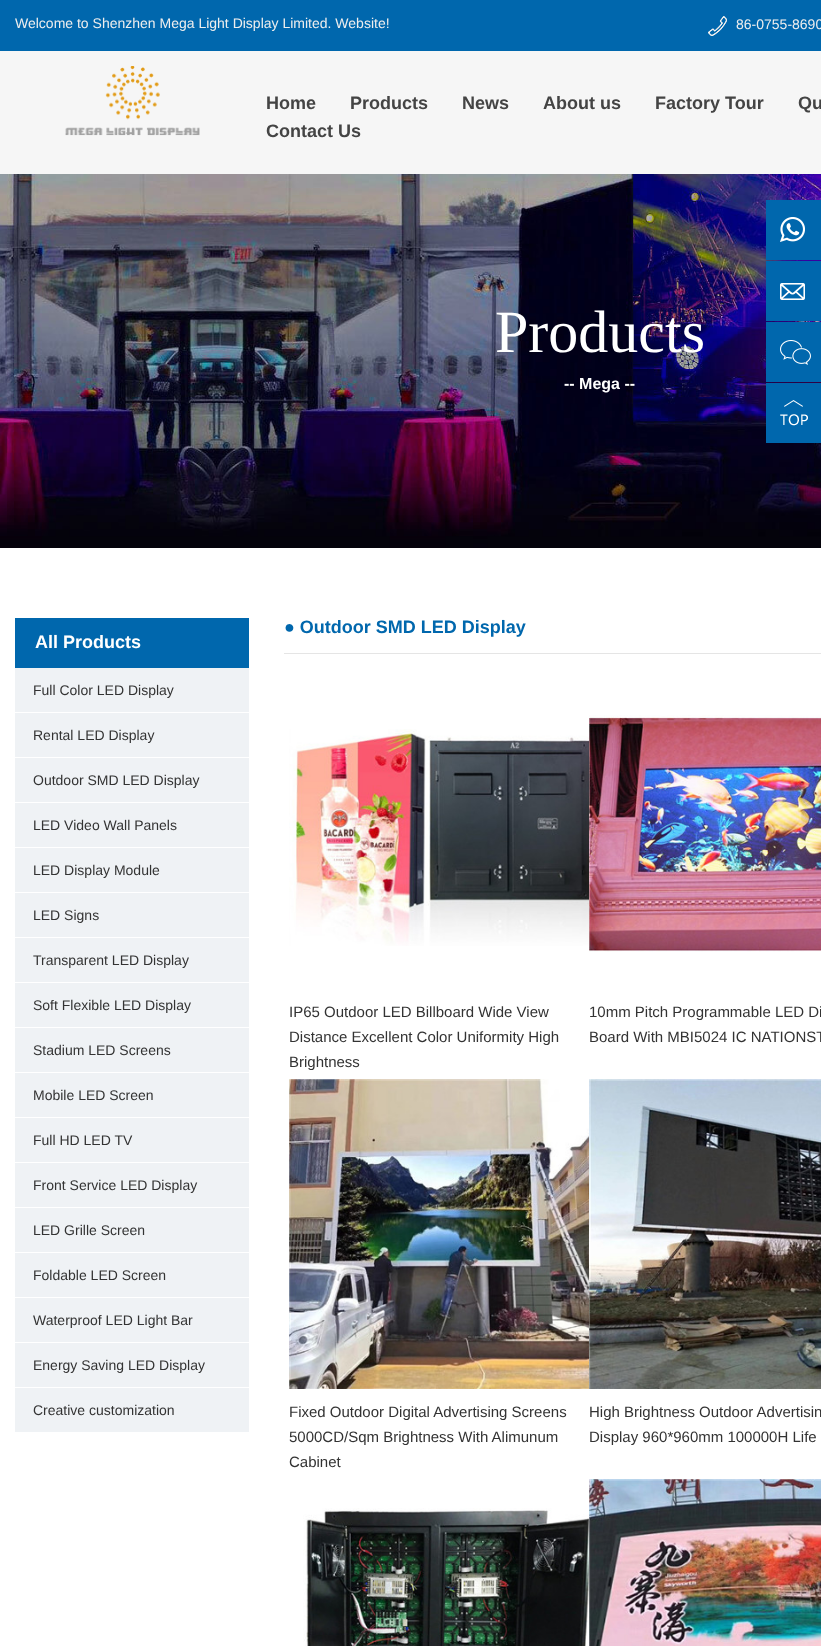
(async () => {
const canvas = document.querySelector("canvas")
canvas.width = 821
canvas.height = 1646
const c = canvas.getContext("2d")
c.miterLimit = 4
c.fontKerning = "normal"
function T(s,x,y){c.fillText(s,x,y)}
function R(x,y,w,h){c.fillRect(x,y,w,h)}
async function I(src,x,y,w,h){const img=new Image();img.src=src;await img.decode();c.drawImage(img,x,y,w,h)}
c.fillStyle="#fff"
R(0,0,821,1646)
c.fillStyle="#0067ad"
R(0,0,821,51)
c.font="14px Liberation Sans"
c.fillStyle="#eee"
T("Welcome to Shenzhen Mega Light Display Limited. Website!",15,28)
await I("1.png",708,16,19,20)
T("86-0755-8690",736,29)
c.fillStyle="#f6f6f6"
R(0,51,821,123)
await I("2.png",65,66,135,70)
c.font="bold 18px Liberation Sans"
c.fillStyle="#444"
T("Home",266,109)
T("Products",350,109)
T("News",462,109)
T("About us",543,109)
T("Factory Tour",655,109)
T("Qu",798,109)
T("Contact Us",266,137)
await I("3.png",0,174,821,374)
c.font="60px Liberation Serif"
c.fillStyle="#fff"
T("Products",495,352)
c.font="bold 16px Liberation Sans"
T("-- Mega --",564,389)
c.fillStyle="#0067ad"
R(766,200,55,60)
await I("4.png",780,217,25,25)
R(766,261,55,60)
await I("5.png",780,283,25,17)
R(766,322,55,60)
await I("6.png",780,340,31,25)
R(766,383,55,60)
await I("7.png",780,400,28,26)
R(15,618,234,50)
c.font="bold 18px Liberation Sans"
c.fillStyle="#fff"
T("All Products",35,648)
c.fillStyle="#eff2f5"
R(15,668,234,44)
c.font="14px Liberation Sans"
c.fillStyle="#333"
T("Full Color LED Display",33,695)
c.fillStyle="#eff2f5"
R(15,713,234,44)
c.fillStyle="#333"
T("Rental LED Display",33,740)
c.fillStyle="#eff2f5"
R(15,758,234,44)
c.fillStyle="#333"
T("Outdoor SMD LED Display",33,785)
c.fillStyle="#eff2f5"
R(15,803,234,44)
c.fillStyle="#333"
T("LED Video Wall Panels",33,830)
c.fillStyle="#eff2f5"
R(15,848,234,44)
c.fillStyle="#333"
T("LED Display Module",33,875)
c.fillStyle="#eff2f5"
R(15,893,234,44)
c.fillStyle="#333"
T("LED Signs",33,920)
c.fillStyle="#eff2f5"
R(15,938,234,44)
c.fillStyle="#333"
T("Transparent LED Display",33,965)
c.fillStyle="#eff2f5"
R(15,983,234,44)
c.fillStyle="#333"
T("Soft Flexible LED Display",33,1010)
c.fillStyle="#eff2f5"
R(15,1028,234,44)
c.fillStyle="#333"
T("Stadium LED Screens",33,1055)
c.fillStyle="#eff2f5"
R(15,1073,234,44)
c.fillStyle="#333"
T("Mobile LED Screen",33,1100)
c.fillStyle="#eff2f5"
R(15,1118,234,44)
c.fillStyle="#333"
T("Full HD LED TV",33,1145)
c.fillStyle="#eff2f5"
R(15,1163,234,44)
c.fillStyle="#333"
T("Front Service LED Display",33,1190)
c.fillStyle="#eff2f5"
R(15,1208,234,44)
c.fillStyle="#333"
T("LED Grille Screen",33,1235)
c.fillStyle="#eff2f5"
R(15,1253,234,44)
c.fillStyle="#333"
T("Foldable LED Screen",33,1280)
c.fillStyle="#eff2f5"
R(15,1298,234,44)
c.fillStyle="#333"
T("Waterproof LED Light Bar",33,1325)
c.fillStyle="#eff2f5"
R(15,1343,234,44)
c.fillStyle="#333"
T("Energy Saving LED Display",33,1370)
c.fillStyle="#eff2f5"
R(15,1388,234,44)
c.fillStyle="#333"
T("Creative customization",33,1415)
c.fillStyle="#e5e5e5"
R(284,653,537,1)
c.font="bold 18px Liberation Sans"
c.fillStyle="#0067ad"
T("● Outdoor SMD LED Display",284,633)
await I("8.png",289,729,300,217)
c.font="15px Liberation Sans"
c.fillStyle="#333"
T("IP65 Outdoor LED Billboard Wide View",289,1017)
T("Distance Excellent Color Uniformity High",289,1042)
T("Brightness",289,1067)
await I("9.png",589,715,232,237)
T("10mm Pitch Programmable LED Di",589,1017)
T("Board With MBI5024 IC NATIONST",589,1042)
await I("10.png",289,1079,300,310)
T("Fixed Outdoor Digital Advertising Screens",289,1417)
T("5000CD/Sqm Brightness With Alimunum",289,1442)
T("Cabinet",289,1467)
await I("11.png",589,1079,232,310)
T("High Brightness Outdoor Advertisin",589,1417)
T("Display 960*960mm 100000H Life",589,1442)
await I("12.png",303,1508,286,138)
await I("13.png",589,1479,232,167)
})()
